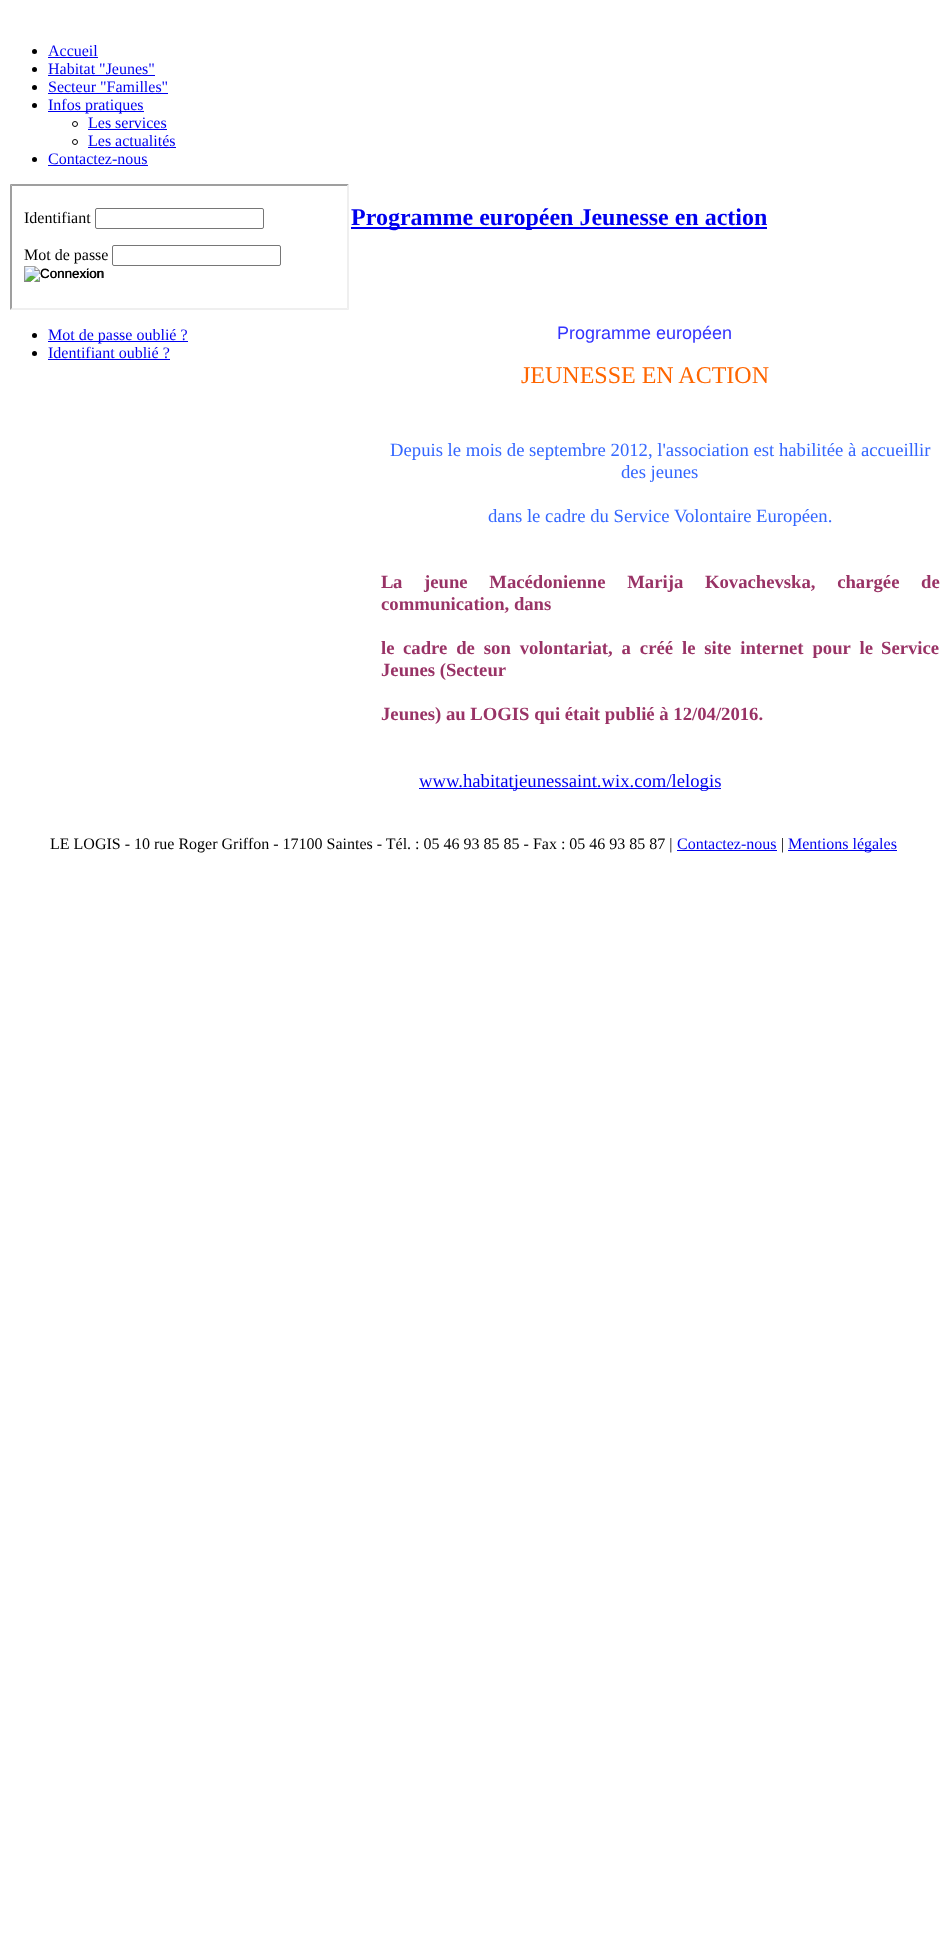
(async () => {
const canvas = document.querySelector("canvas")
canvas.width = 947
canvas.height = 1938
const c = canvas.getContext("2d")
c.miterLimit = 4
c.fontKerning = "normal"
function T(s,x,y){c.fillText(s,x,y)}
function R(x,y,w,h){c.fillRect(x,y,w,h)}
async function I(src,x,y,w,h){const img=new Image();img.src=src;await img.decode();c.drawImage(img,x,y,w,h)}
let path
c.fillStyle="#fff"
R(0,0,947,1938)
c.fillStyle="#000"
c.beginPath()
c.arc(34.5,51.5,2.5,0,7)
c.fill()
c.font="16px Liberation Serif"
c.fillStyle="#00e"
T("Accueil",48,56)
R(48,57,50,1)
c.fillStyle="#000"
c.beginPath()
c.arc(34.5,69.5,2.5,0,7)
c.fill()
c.fillStyle="#00e"
T("Habitat \"Jeunes\"",48,74)
R(48,75,107,1)
c.fillStyle="#000"
c.beginPath()
c.arc(34.5,87.5,2.5,0,7)
c.fill()
c.fillStyle="#00e"
T("Secteur \"Familles\"",48,92)
R(48,93,120,1)
c.fillStyle="#000"
c.beginPath()
c.arc(34.5,105.5,2.5,0,7)
c.fill()
c.fillStyle="#00e"
R(48,111,96,1)
T("Infos pratiques",48,110)
c.beginPath()
c.arc(75,124,2.5,0,7)
c.strokeStyle="#000"
c.stroke()
T("Les services",88,128)
R(88,129,79,1)
c.beginPath()
c.arc(75,142,2.5,0,7)
c.stroke()
T("Les actualités",88,146)
R(88,147,88,1)
c.fillStyle="#000"
c.beginPath()
c.arc(34.5,159.5,2.5,0,7)
c.fill()
c.fillStyle="#00e"
T("Contactez-nous",48,164)
R(48,165,100,1)
c.fillStyle="#9f9f9f"
path = new Path2D("M10 184h339l-2 2h-335z")
c.fill(path)
c.fillStyle="#efefef"
path = new Path2D("M349 184v126l-2-2v-122z")
c.fill(path)
path = new Path2D("M349 310h-339l2-2h335z")
c.fill(path)
c.fillStyle="#9f9f9f"
path = new Path2D("M10 310v-126l2 2v122z")
c.fill(path)
c.fillStyle="#000"
T("Identifiant",24,223)
c.beginPath()
c.roundRect(95.5,208.5,168,20,1.5)
c.strokeStyle="#767676"
c.stroke()
T("Mot de passe",24,260)
c.beginPath()
c.roundRect(112.5,245.5,168,20,1.5)
c.stroke()
await I("1.png",24,266,79,16)
c.font="13.5px Liberation Sans"
T("Connexion",40,278)
c.beginPath()
c.arc(34.5,335.5,2.5,0,7)
c.fill()
c.fillStyle="#00e"
R(48,341,140,1)
c.font="16px Liberation Serif"
T("Mot de passe oublié ?",48,340)
c.fillStyle="#000"
c.beginPath()
c.arc(34.5,353.5,2.5,0,7)
c.fill()
c.fillStyle="#00e"
T("Identifiant oublié ?",48,358)
R(48,359,122,1)
R(351,227,416,2)
c.font="bold 24px Liberation Serif"
T("Programme européen Jeunesse en action",351,225)
c.font="18px Liberation Sans"
c.fillStyle="#33f"
T("Programme européen",557,339)
c.font="24px Liberation Serif"
c.fillStyle="#f60"
T("JEUNESSE EN ACTION",521,383)
c.font="18.7px Liberation Serif"
c.fillStyle="#36f"
T("Depuis le mois de septembre 2012, l'association est habilitée à accueillir",390,456)
T("des jeunes",621,478)
T("dans le cadre du Service Volontaire Européen.",488,522)
c.font="bold 18.7px Liberation Serif"
c.fillStyle="#936"
T("L",381,588)
c.wordSpacing="17px"
T("a jeune Macédonienne Marija Kovachevska, chargée de",393,588)
c.wordSpacing="0px"
T("communication, dans",381,610)
T("le",381,654)
c.wordSpacing="4.25px"
T("cadre de son volontariat, a créé le site internet pour le",403,654)
c.wordSpacing="0px"
T("Service",881,654)
T("Jeunes (Secteur",381,676)
T("Jeunes) au LOGIS qui était publié à 12/04/2016.",381,720)
c.fillStyle="#00e"
R(419,788,302,1)
c.font="18.7px Liberation Serif"
T("www.habitatjeunessaint.wix.com/lelogis",419,787)
c.font="16px Liberation Serif"
c.fillStyle="#000"
T("LE LOGIS - 10 rue Roger Griffon - 17100 Saintes - Tél. : 05 46 93 85 85 - Fax : 05 46 93 85 87 |",50,849)
c.fillStyle="#00e"
T("Contactez-nous",677,849)
R(677,850,100,1)
c.fillStyle="#000"
T("|",781,849)
c.fillStyle="#00e"
R(788,850,109,1)
T("Mentions légales",788,849)
})()
